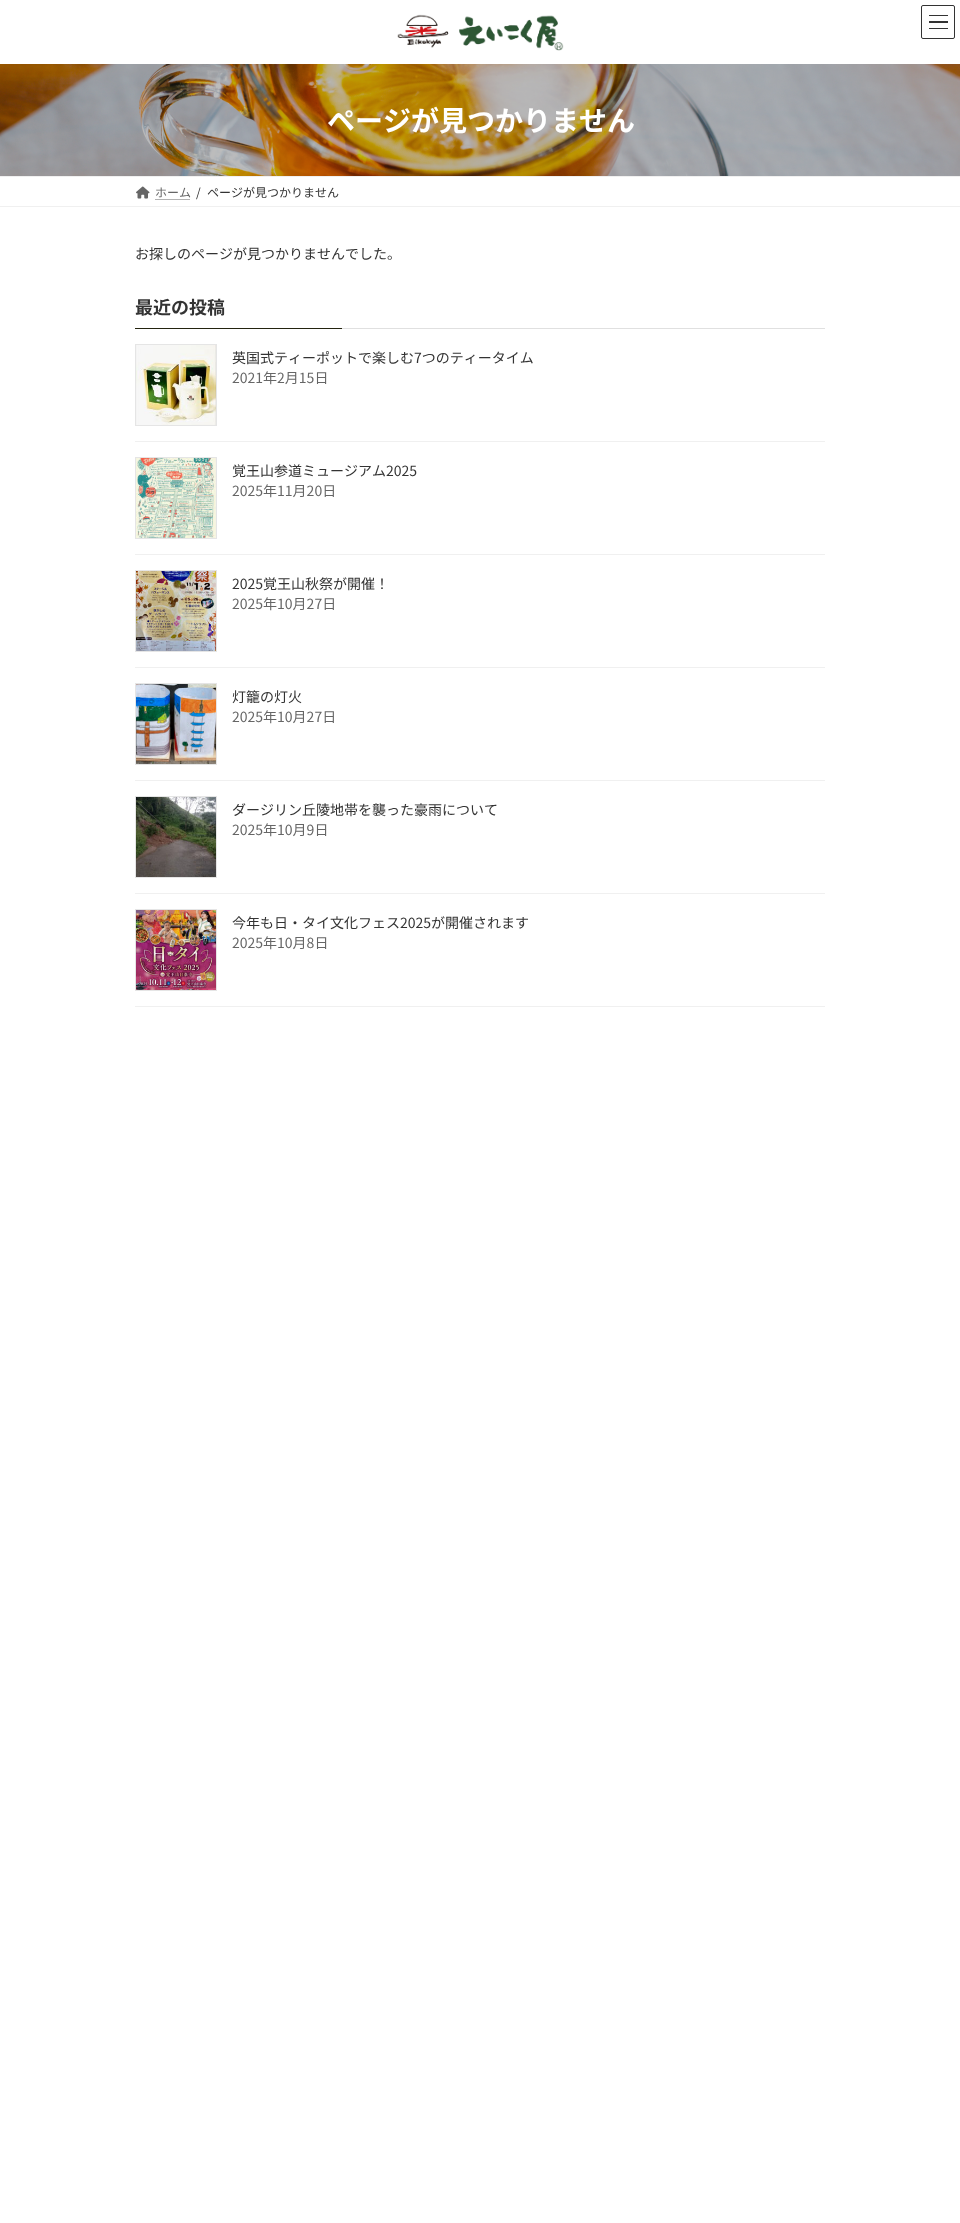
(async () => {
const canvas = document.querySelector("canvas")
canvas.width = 960
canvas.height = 2223
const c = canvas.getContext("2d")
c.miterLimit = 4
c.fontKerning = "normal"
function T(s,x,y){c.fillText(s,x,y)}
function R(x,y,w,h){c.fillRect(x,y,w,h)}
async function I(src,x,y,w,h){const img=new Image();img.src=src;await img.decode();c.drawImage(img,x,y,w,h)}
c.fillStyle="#fff"
R(0,0,960,2223)
await I("1.png",397,14,167,37)
c.fillStyle="#333"
R(929,15,19,1)
R(929,21,19,2)
R(929,28,19,1)
c.beginPath()
c.roundRect(921.5,5.5,33,33,1.5)
c.strokeStyle="#333"
c.stroke()
await I("2.png",0,64,960,112)
c.font="bold 28px Noto Sans JP"
c.fillStyle="#fff"
T("ページが見つかりません",327,131)
c.fillStyle="#f0f0f0"
R(0,176,960,1)
R(0,206,960,1)
await I("3.png",136,186,14,13)
c.font="12px Noto Sans JP"
c.fillStyle="#666"
T("ホーム",155,197)
c.fillStyle="#b3b3b3"
R(155,199,35,1)
c.fillStyle="#333"
T("/",196,197)
T("ページが見つかりません",207,197)
c.font="14px Noto Sans JP"
T("お探しのページが見つかりませんでした。",135,259)
c.fillStyle="#e0e0e0"
R(342,328,483,1)
c.font="bold 18px Noto Sans JP"
c.fillStyle="#333"
T("最近の投稿",135,314)
c.fillStyle="#23230f"
R(135,328,207,1)
c.fillStyle="#f0f0f0"
R(135,441,690,1)
c.strokeStyle="#e5e5e5"
c.strokeRect(135.5,344.5,81,81)
await I("4.png",136,345,80,80)
c.font="14px Noto Sans JP"
c.fillStyle="#333"
T("英国式ティーポットで楽しむ7つのティータイム",232,363)
c.fillStyle="#666"
T("2021年2月15日",232,383)
c.fillStyle="#f0f0f0"
R(135,554,690,1)
c.strokeRect(135.5,457.5,81,81)
await I("5.png",136,458,80,80)
c.fillStyle="#333"
T("覚王山参道ミュージアム2025",232,476)
c.fillStyle="#666"
T("2025年11月20日",232,496)
c.fillStyle="#f0f0f0"
R(135,667,690,1)
c.strokeRect(135.5,570.5,81,81)
await I("6.png",136,571,80,80)
c.fillStyle="#333"
T("2025覚王山秋祭が開催！",232,589)
c.fillStyle="#666"
T("2025年10月27日",232,609)
c.fillStyle="#f0f0f0"
R(135,780,690,1)
c.strokeRect(135.5,683.5,81,81)
await I("7.png",136,684,80,80)
c.fillStyle="#333"
T("灯籠の灯火",232,702)
c.fillStyle="#666"
T("2025年10月27日",232,722)
c.fillStyle="#f0f0f0"
R(135,893,690,1)
c.strokeRect(135.5,796.5,81,81)
await I("8.png",136,797,80,80)
c.fillStyle="#333"
T("ダージリン丘陵地帯を襲った豪雨について",232,815)
c.fillStyle="#666"
T("2025年10月9日",232,835)
c.fillStyle="#f0f0f0"
R(135,1006,690,1)
c.strokeRect(135.5,909.5,81,81)
await I("9.png",136,910,80,80)
c.fillStyle="#333"
T("今年も日・タイ文化フェス2025が開催されます",232,928)
c.fillStyle="#666"
T("2025年10月8日",232,948)
})()
